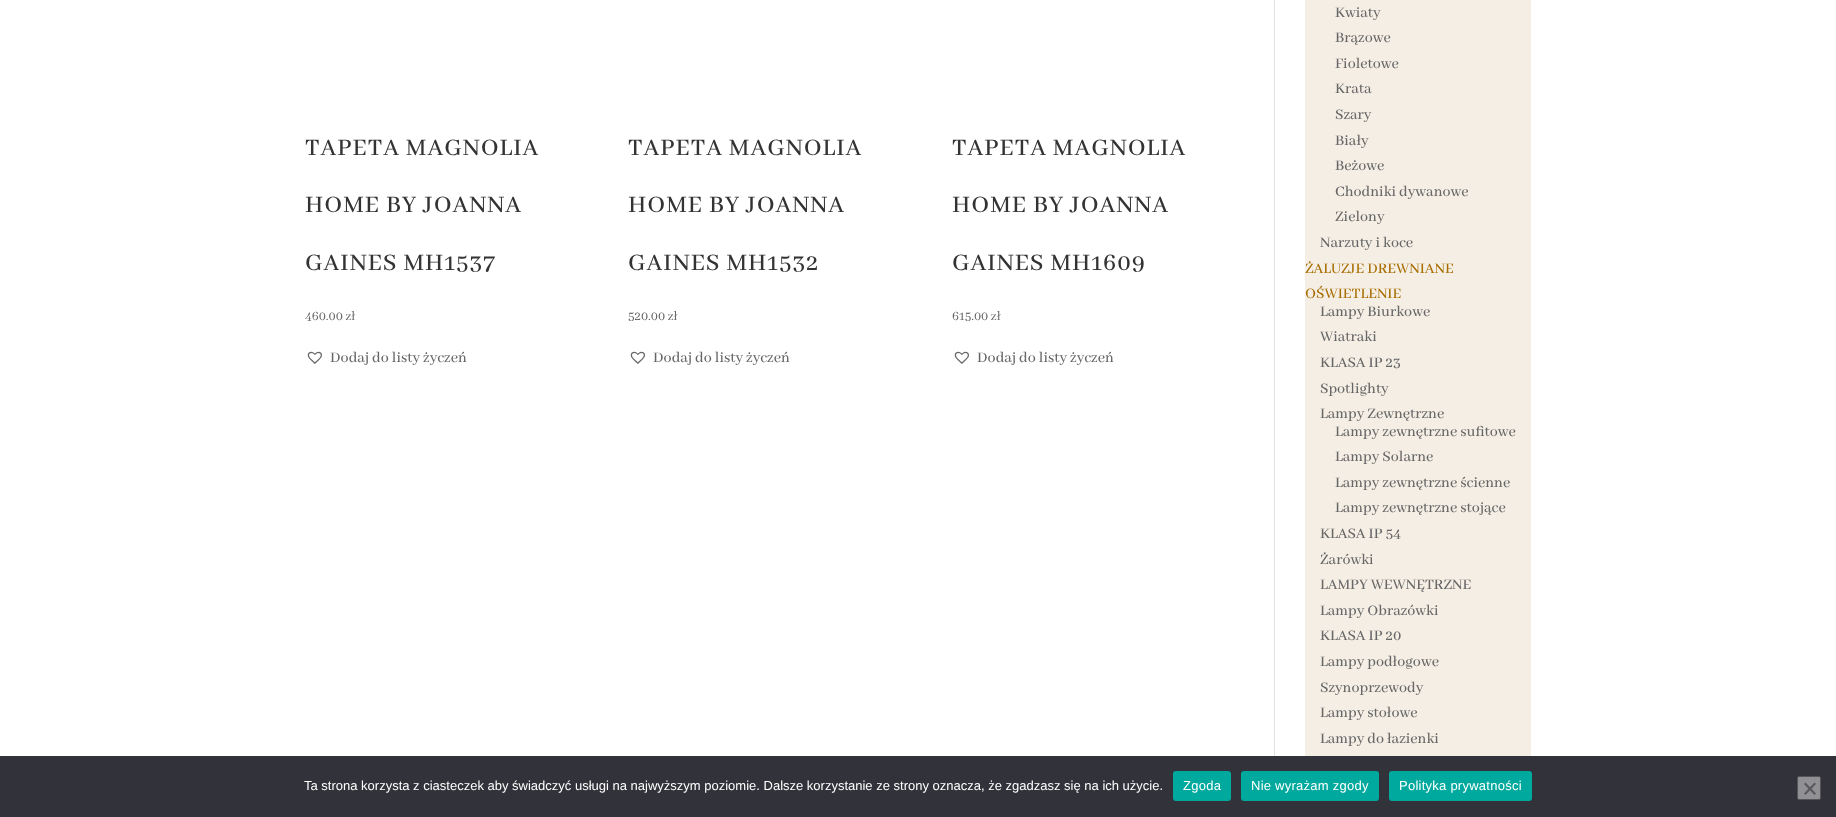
(async () => {
const canvas = document.querySelector("canvas")
canvas.width = 1836
canvas.height = 817
const c = canvas.getContext("2d")
c.miterLimit = 4
c.fontKerning = "normal"
function T(s,x,y){c.fillText(s,x,y)}
function R(x,y,w,h){c.fillRect(x,y,w,h)}
function Q(x,y,w,h,r){c.beginPath();c.roundRect(x,y,w,h,r);c.fill()}
async function I(src,x,y,w,h){const img=new Image();img.src=src;await img.decode();c.drawImage(img,x,y,w,h)}
let path
c.fillStyle="#fff"
R(0,0,1836,817)
c.fillStyle="#e2e2e2"
R(1274,0,1,756)
c.letterSpacing="1px"
c.font="500 26px Abhaya Libre Medium"
c.fillStyle="#333"
T("TAPETA MAGNOLIA",305,155)
T("HOME BY JOANNA",305,212)
T("GAINES MH1537",305,270)
c.letterSpacing="0px"
c.font="14px Abhaya Libre"
c.fillStyle="#666"
T("460.00 zł",305,320)
await I("1.png",307,351,15,13)
c.font="500 16px Abhaya Libre Medium"
T("Dodaj do listy życzeń",330,362)
c.letterSpacing="1px"
c.font="500 26px Abhaya Libre Medium"
c.fillStyle="#333"
T("TAPETA MAGNOLIA",628,155)
T("HOME BY JOANNA",628,212)
T("GAINES MH1532",628,270)
c.letterSpacing="0px"
c.font="14px Abhaya Libre"
c.fillStyle="#666"
T("520.00 zł",628,320)
await I("1.png",630,351,15,13)
c.font="500 16px Abhaya Libre Medium"
T("Dodaj do listy życzeń",653,362)
c.letterSpacing="1px"
c.font="500 26px Abhaya Libre Medium"
c.fillStyle="#333"
T("TAPETA MAGNOLIA",952,155)
T("HOME BY JOANNA",952,212)
T("GAINES MH1609",952,270)
c.letterSpacing="0px"
c.font="14px Abhaya Libre"
c.fillStyle="#666"
T("615.00 zł",952,320)
await I("1.png",954,351,15,13)
c.font="500 16px Abhaya Libre Medium"
T("Dodaj do listy życzeń",977,362)
c.fillStyle="#f4eee4"
R(1305,0,226,756)
c.fillStyle="#666"
T("Kwiaty",1335,17)
T("Brązowe",1335,42)
T("Fioletowe",1335,68)
T("Krata",1335,93)
T("Szary",1335,119)
T("Biały",1335,145)
T("Beżowe",1335,170)
T("Chodniki dywanowe",1335,196)
T("Zielony",1335,221)
T("Narzuty i koce",1320,247)
c.fillStyle="#a86d00"
T("ŻALUZJE DREWNIANE",1305,273)
T("OŚWIETLENIE",1305,298)
c.fillStyle="#666"
T("Lampy Biurkowe",1320,316)
T("Wiatraki",1320,341)
T("KLASA IP 23",1320,367)
T("Spotlighty",1320,393)
T("Lampy Zewnętrzne",1320,418)
T("Lampy zewnętrzne sufitowe",1335,436)
T("Lampy Solarne",1335,461)
T("Lampy zewnętrzne ścienne",1335,487)
T("Lampy zewnętrzne stojące",1335,512)
T("KLASA IP 54",1320,538)
T("Żarówki",1320,564)
T("LAMPY WEWNĘTRZNE",1320,589)
T("Lampy Obrazówki",1320,615)
T("KLASA IP 20",1320,640)
T("Lampy podłogowe",1320,666)
T("Szynoprzewody",1320,692)
T("Lampy stołowe",1320,717)
T("Lampy do łazienki",1320,743)
c.fillStyle="#32323a"
R(0,756,1836,61)
c.font="13px Liberation Sans"
c.fillStyle="#fff"
T("Ta strona korzysta z ciasteczek aby świadczyć usługi na najwyższym poziomie. Dalsze korzystanie ze strony oznacza, że zgadzasz się na ich użycie.",304,790)
c.fillStyle="#00a99d"
Q(1173,771,58,30,3)
c.letterSpacing="0.25px"
c.fillStyle="#fff"
T("Zgoda",1183,790)
c.fillStyle="#00a99d"
Q(1241,771,138,30,3)
c.fillStyle="#fff"
T("Nie wyrażam zgody",1251,790)
c.fillStyle="#00a99d"
Q(1389,771,143,30,3)
c.fillStyle="#fff"
T("Polityka prywatności",1399,790)
c.fillStyle="#919195"
c.beginPath()
c.roundRect(1797.5,776.5,23,23,1.5)
c.fill()
c.strokeStyle="#545458"
c.stroke()
c.fillStyle="#59595d"
path = new Path2D("M1814.5 782.5l1.5 1.5l-10.5 11l-1.5-1.5z")
c.fill(path)
path = new Path2D("M1804 784l1.5-1.5l10.5 11l-1.5 1.5z")
c.fill(path)
})()
